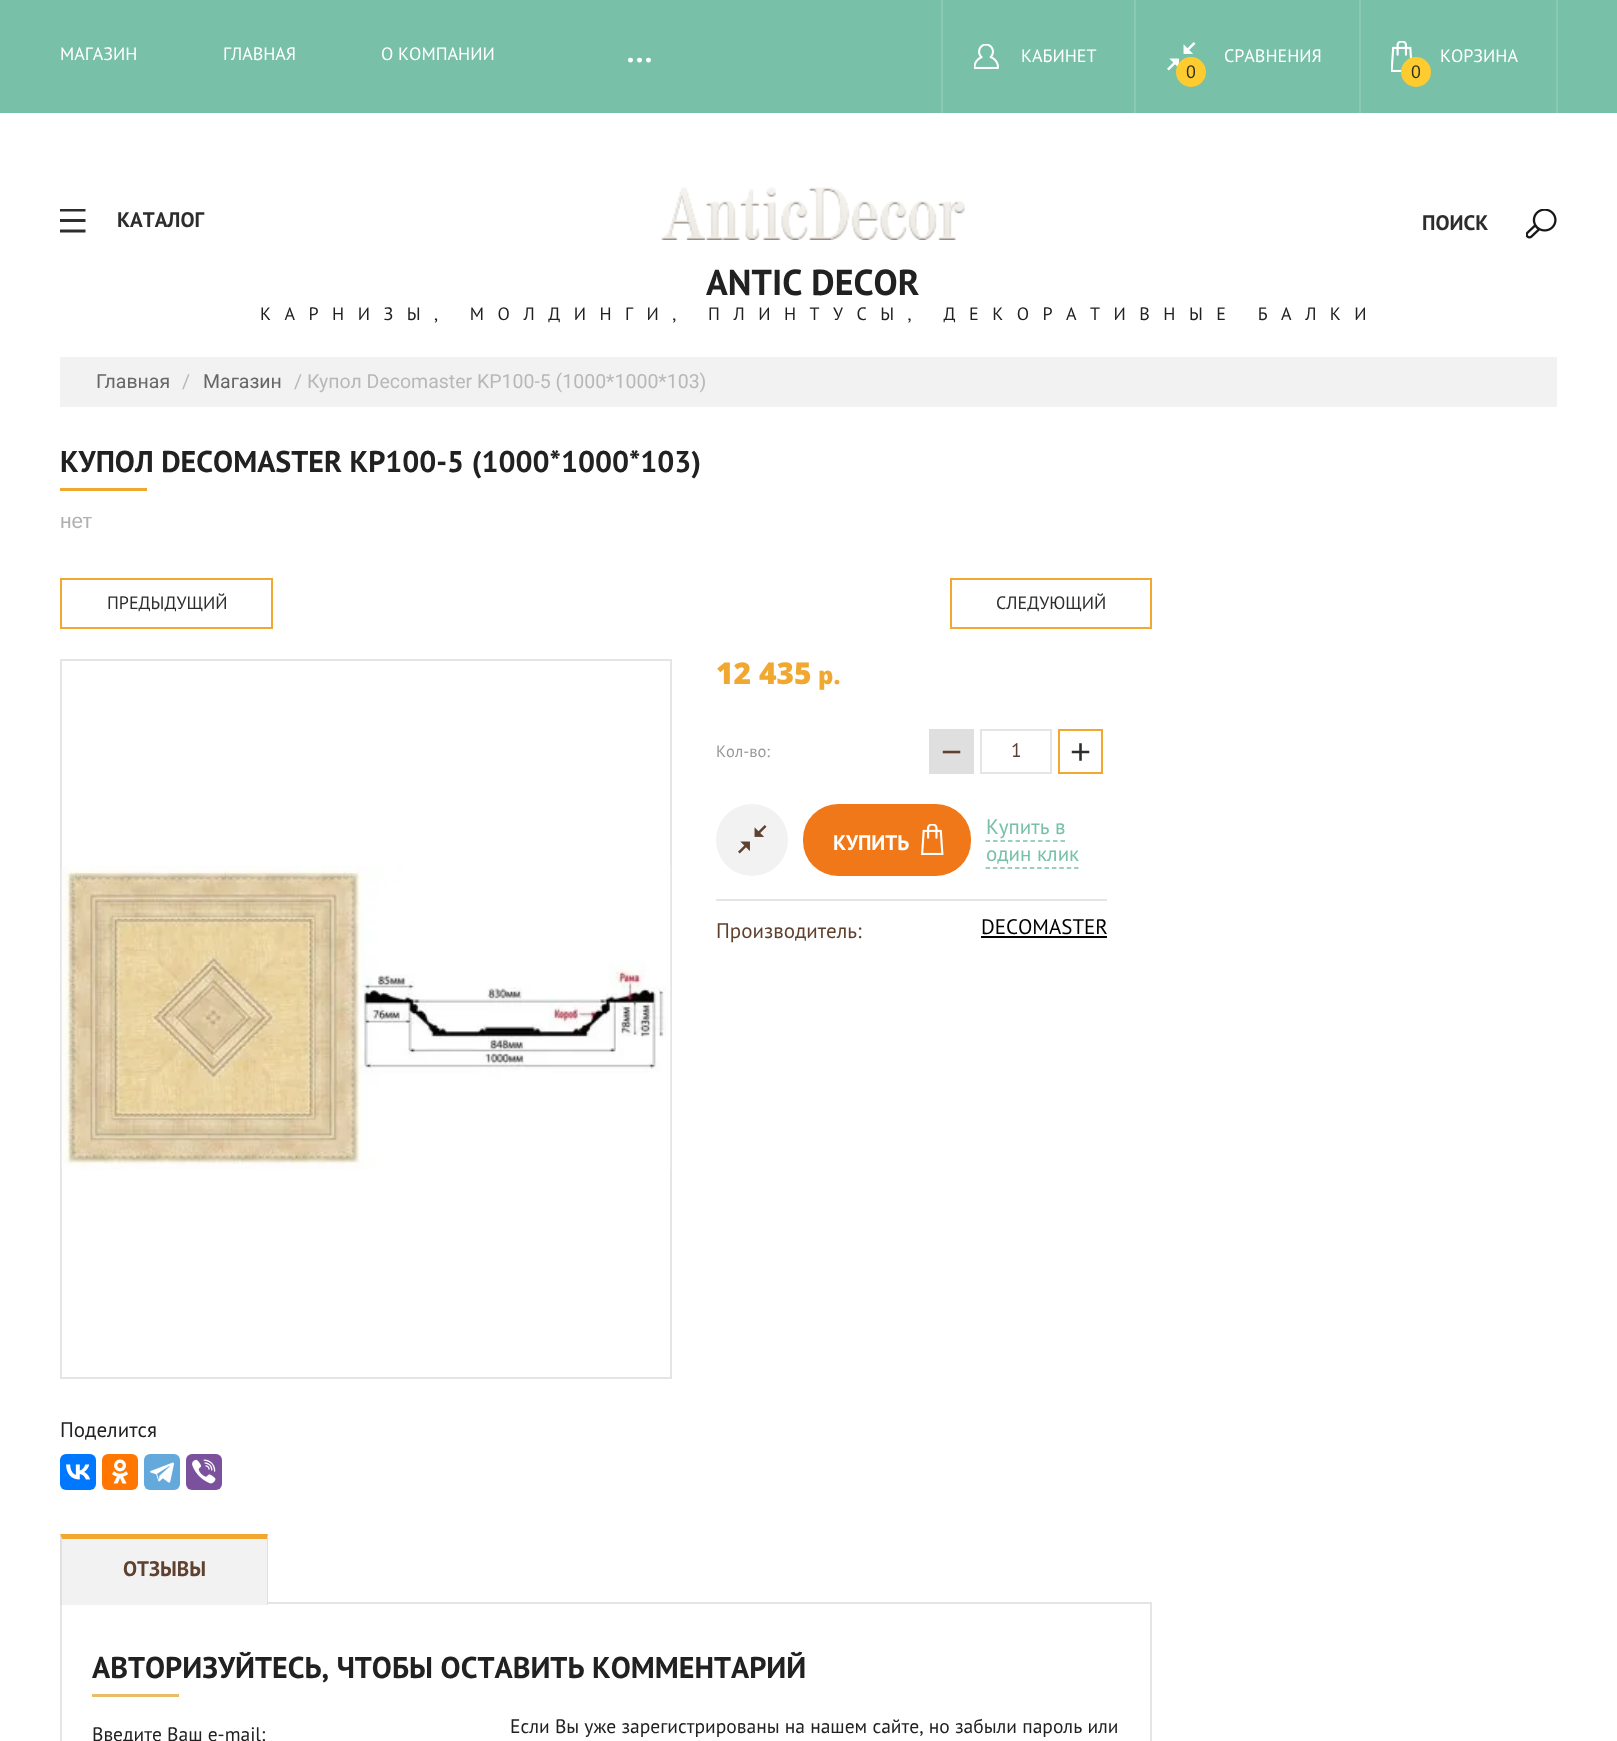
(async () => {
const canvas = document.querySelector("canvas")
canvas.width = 1617
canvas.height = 1741
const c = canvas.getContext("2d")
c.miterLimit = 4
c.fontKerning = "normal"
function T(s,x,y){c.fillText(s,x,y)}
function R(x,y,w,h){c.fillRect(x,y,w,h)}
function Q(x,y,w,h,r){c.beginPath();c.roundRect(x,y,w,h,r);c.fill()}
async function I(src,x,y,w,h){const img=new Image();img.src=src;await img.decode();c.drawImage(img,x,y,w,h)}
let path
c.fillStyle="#fff"
R(0,0,1617,1741)
c.fillStyle="#78c0a8"
R(0,0,1617,113)
c.font="18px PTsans"
c.fillStyle="#fff"
T("МАГАЗИН",60,60)
T("ГЛАВНАЯ",223,60)
T("О КОМПАНИИ",381,60)
c.font="42px PTsans"
T("...",626,62)
await I("1.png",974,44,25,25)
c.fillStyle="#8cc9b5"
R(941,0,2,113)
R(1134,0,2,113)
c.font="18px PTsans"
c.fillStyle="#fff"
T("КАБИНЕТ",1021,62)
await I("2.png",1167,42,29,29)
c.fillStyle="#8cc9b5"
R(1359,0,2,113)
c.fillStyle="#fff"
T("СРАВНЕНИЯ",1224,62)
c.fillStyle="#ffcc2f"
c.beginPath()
c.arc(1191,72,15,0,7)
c.fill()
c.fillStyle="#2d2d2d"
T("0",1186,78)
await I("3.png",1391,41,21,31)
c.fillStyle="#8cc9b5"
R(1556,0,2,113)
c.fillStyle="#fff"
T("КОРЗИНА",1440,62)
c.fillStyle="#ffcc2f"
c.beginPath()
c.arc(1416,72,15,0,7)
c.fill()
c.fillStyle="#2d2d2d"
T("0",1411,78)
await I("4.png",60,209,26,24)
c.font="bold 21px PTsans"
T("КАТАЛОГ",117,227)
await I("5.png",1526,209,31,30)
T("ПОИСК",1422,230)
await I("6.png",661,187,304,53)
c.font="bold 36px PTsans"
c.fillStyle="#212121"
T("ANTIC DECOR",706,295)
c.letterSpacing="13.5px"
c.font="18px PTsans"
T("КАРНИЗЫ, МОЛДИНГИ, ПЛИНТУСЫ, ДЕКОРАТИВНЫЕ БАЛКИ",260,320)
c.fillStyle="#f2f2f2"
R(60,357,1497,50)
c.letterSpacing="0px"
c.font="19.5px Roboto"
c.fillStyle="#676767"
T("Главная",96,388)
c.fillStyle="#b8b8b8"
T("/",182,388)
c.fillStyle="#676767"
T("Магазин",203,388)
c.fillStyle="#b8b8b8"
T("/ Купол Decomaster KP100-5 (1000*1000*103)",294,388)
c.font="bold 30px PTsans"
c.fillStyle="#212121"
T("КУПОЛ DECOMASTER KP100-5 (1000*1000*103)",60,472)
c.fillStyle="#f0a830"
R(60,488,87,3)
c.font="21px Liberation Sans"
c.fillStyle="#b0b0b0"
T("нет",60,528)
c.strokeStyle="#f0a830"
c.lineWidth=2
c.strokeRect(61,579,211,49)
c.font="18px PTsans"
c.fillStyle="#2d2d2d"
T("ПРЕДЫДУЩИЙ",107,609)
c.strokeRect(951,579,200,49)
T("СЛЕДУЮЩИЙ",996,609)
c.font="800 30px Open Sans"
c.fillStyle="#f0a830"
T("12 435",716,684)
c.font="800 24px Open Sans"
T("p.",818,684)
c.font="16.5px PTsans"
c.fillStyle="#999"
T("Кол-во:",716,757)
c.fillStyle="#dfdfdf"
R(929,729,45,45)
c.font="36px Liberation Sans"
c.fillStyle="#5e412f"
T("−",941,764)
c.strokeStyle="#e5e5e5"
c.strokeRect(981,730,70,43)
c.font="19.5px PTsans"
T("1",1011,757)
c.strokeStyle="#f0a830"
c.strokeRect(1059,730,43,43)
c.font="36px Liberation Sans"
c.fillStyle="#2d2d2d"
T("+",1070,764)
c.fillStyle="#f2f2f2"
c.beginPath()
c.arc(752,840,36,0,7)
c.fill()
await I("7.png",738,825,29,29)
c.fillStyle="#f07818"
Q(803,804,168,72,35)
await I("8.png",921,824,23,31)
c.font="bold 21px PTsans"
c.fillStyle="#fff"
T("КУПИТЬ",833,850)
c.font="21px PTsans"
c.fillStyle="#78c0a8"
T("Купить в",986,834)
path = new Path2D("M985.5 841h79.5")
c.strokeStyle="#78c0a8"
c.lineWidth=1.5
c.setLineDash([4.5,3])
c.stroke(path)
T("один клик",986,861)
path = new Path2D("M985.5 868h93")
c.setLineDash([4.5,2.88])
c.stroke(path)
c.fillStyle="#e5e5e5"
R(716,899,391,2)
c.fillStyle="#5e412f"
T("Производитель:",716,938)
c.fillStyle="#000"
T("DECOMASTER",981,934)
R(981,936,126,2)
c.strokeStyle="#e5e5e5"
c.lineWidth=2
c.setLineDash([])
c.strokeRect(61,660,610,718)
await I("9.png",61,866,610,304)
c.fillStyle="#212121"
T("Поделится",60,1437)
c.fillStyle="#07f"
Q(60,1454,36,36,6)
await I("10.png",66,1464,24,16)
c.fillStyle="#f70"
Q(102,1454,36,36,6)
await I("11.png",112,1459,16,25)
c.fillStyle="#64a9dc"
Q(144,1454,36,36,6)
await I("12.png",150,1462,24,21)
c.fillStyle="#7b519d"
Q(186,1454,36,36,6)
await I("13.png",192,1459,24,25)
c.strokeRect(61,1603,1090,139)
c.fillStyle="#f2f2f2"
R(62,1539,205,66)
c.fillStyle="#f0a830"
path = new Path2D("M60 1534h208l-1 5h-205z")
c.fill(path)
c.fillStyle="#e0e0e0"
path = new Path2D("M268 1534v71h-1v-66z")
c.fill(path)
path = new Path2D("M60 1605v-71l2 5v66z")
c.fill(path)
c.font="bold 21px PTsans"
c.fillStyle="#5e412f"
T("ОТЗЫВЫ",123,1576)
c.font="bold 30px PTsans"
c.fillStyle="#212121"
T("АВТОРИЗУЙТЕСЬ, ЧТОБЫ ОСТАВИТЬ КОММЕНТАРИЙ",92,1678)
c.fillStyle="#e9bd68"
R(92,1694,87,3)
c.font="19.5px PTsans"
c.fillStyle="#212121"
T("Введите Ваш e-mail:",92,1741)
T("Если Вы уже зарегистрированы на нашем сайте, но забыли пароль или",510,1733)
})()
